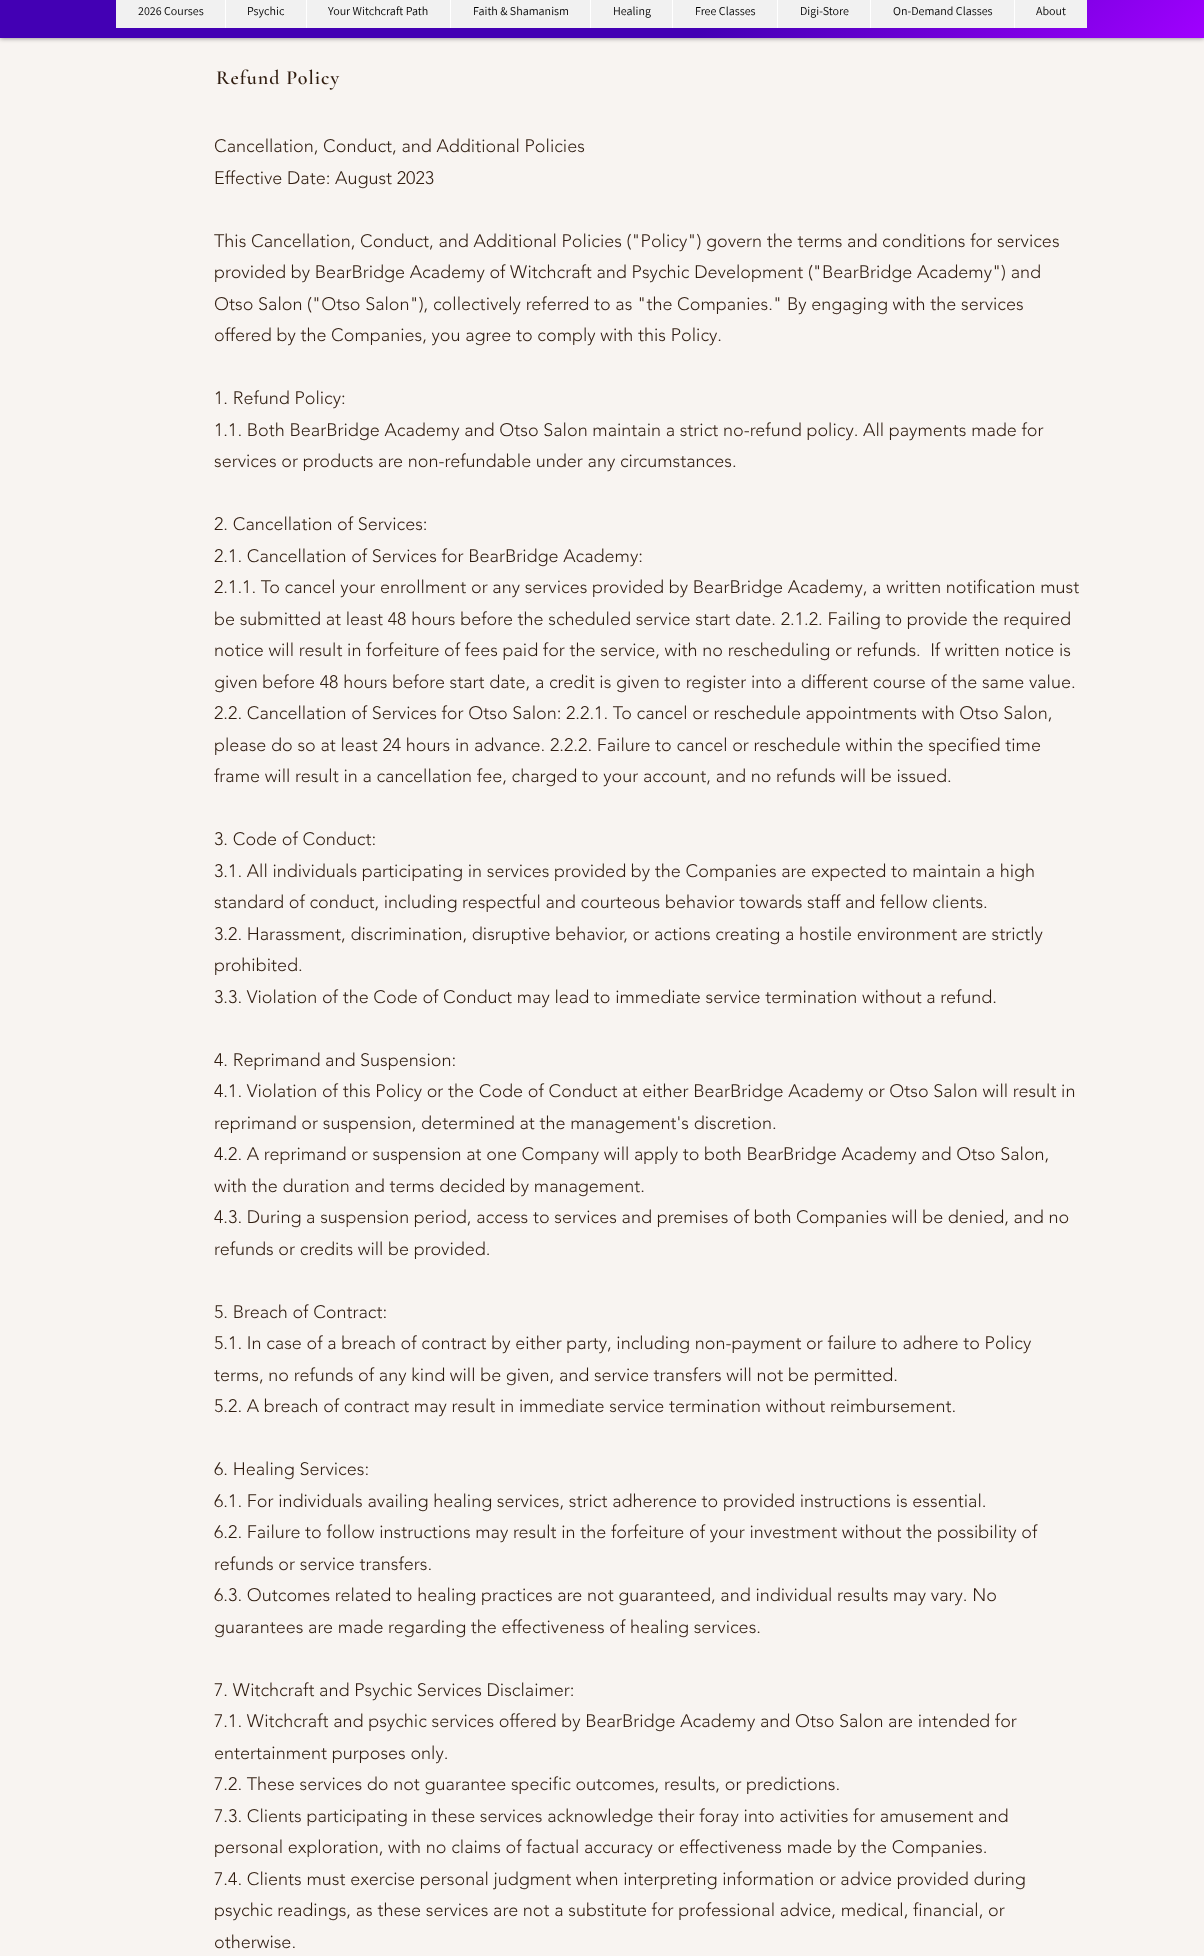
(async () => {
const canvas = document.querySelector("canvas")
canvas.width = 1204
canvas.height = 1956
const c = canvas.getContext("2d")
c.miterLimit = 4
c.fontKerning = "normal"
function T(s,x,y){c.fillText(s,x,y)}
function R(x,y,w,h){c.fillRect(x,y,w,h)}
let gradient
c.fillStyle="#f8f4f1"
R(0,0,1204,1956)
c.fillStyle="#00000080"
c.filter="blur(2.5px)"
c.beginPath()
c.rect(0,-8,1204,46)
c.fill()
c.filter="none"
gradient = c.createLinearGradient(257,-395,947,295)
gradient.addColorStop(.63,"#4300b4")
gradient.addColorStop(1,"#a000ff")
c.fillStyle = gradient
R(0,0,1204,38)
c.fillStyle="#f1f1f1"
R(116,0,971,28)
c.font="12px Assistant"
c.fillStyle="#000"
T("2026 Courses",138,15)
c.fillStyle="#fff"
R(225,0,1,28)
c.fillStyle="#000"
T("Psychic",247,15)
c.fillStyle="#fff"
R(306,0,1,28)
c.fillStyle="#000"
T("Your Witchcraft Path",328,15)
c.fillStyle="#fff"
R(450,0,1,28)
c.fillStyle="#000"
T("Faith & Shamanism",473,15)
c.fillStyle="#fff"
R(590,0,1,28)
c.fillStyle="#000"
T("Healing",613,15)
c.fillStyle="#fff"
R(672,0,1,28)
c.fillStyle="#000"
T("Free Classes",695,15)
c.fillStyle="#fff"
R(777,0,1,28)
c.fillStyle="#000"
T("Digi-Store",800,15)
c.fillStyle="#fff"
R(870,0,1,28)
c.fillStyle="#000"
T("On-Demand Classes",893,15)
c.fillStyle="#fff"
R(1014,0,1,28)
c.fillStyle="#000"
T("About",1036,15)
c.letterSpacing="1px"
c.font="600 20px Cormorant Garamond"
c.fillStyle="#301d10"
T("Refund Policy",216,84)
c.letterSpacing="0px"
c.font="300 18px 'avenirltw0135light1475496'"
T("Cancellation, Conduct, and Additional Policies",214,152)
T("Effective Date: August 2023",214,184)
T("This Cancellation, Conduct, and Additional Policies (\"Policy\") govern the terms and conditions for services",214,247)
T("provided by BearBridge Academy of Witchcraft and Psychic Development (\"BearBridge Academy\") and",214,278)
T("Otso Salon (\"Otso Salon\"), collectively referred to as \"the Companies.\" By engaging with the services",214,310)
T("offered by the Companies, you agree to comply with this Policy.",214,341)
T("1. Refund Policy:",214,404)
T("1.1. Both BearBridge Academy and Otso Salon maintain a strict no-refund policy. All payments made for",214,436)
T("services or products are non-refundable under any circumstances.",214,467)
T("2. Cancellation of Services:",214,530)
T("2.1. Cancellation of Services for BearBridge Academy:",214,562)
T("2.1.1. To cancel your enrollment or any services provided by BearBridge Academy, a written notification must",214,593)
T("be submitted at least 48 hours before the scheduled service start date. 2.1.2. Failing to provide the required",214,625)
T("notice will result in forfeiture of fees paid for the service, with no rescheduling or refunds.  If written notice is",214,656)
T("given before 48 hours before start date, a credit is given to register into a different course of the same value.",214,688)
T("2.2. Cancellation of Services for Otso Salon: 2.2.1. To cancel or reschedule appointments with Otso Salon,",214,719)
T("please do so at least 24 hours in advance. 2.2.2. Failure to cancel or reschedule within the specified time",214,751)
T("frame will result in a cancellation fee, charged to your account, and no refunds will be issued.",214,782)
T("3. Code of Conduct:",214,845)
T("3.1. All individuals participating in services provided by the Companies are expected to maintain a high",214,877)
T("standard of conduct, including respectful and courteous behavior towards staff and fellow clients.",214,908)
T("3.2. Harassment, discrimination, disruptive behavior, or actions creating a hostile environment are strictly",214,940)
T("prohibited.",214,971)
T("3.3. Violation of the Code of Conduct may lead to immediate service termination without a refund.",214,1003)
T("4. Reprimand and Suspension:",214,1066)
T("4.1. Violation of this Policy or the Code of Conduct at either BearBridge Academy or Otso Salon will result in",214,1097)
T("reprimand or suspension, determined at the management's discretion.",214,1129)
T("4.2. A reprimand or suspension at one Company will apply to both BearBridge Academy and Otso Salon,",214,1160)
T("with the duration and terms decided by management.",214,1192)
T("4.3. During a suspension period, access to services and premises of both Companies will be denied, and no",214,1223)
T("refunds or credits will be provided.",214,1255)
T("5. Breach of Contract:",214,1318)
T("5.1. In case of a breach of contract by either party, including non-payment or failure to adhere to Policy",214,1349)
T("terms, no refunds of any kind will be given, and service transfers will not be permitted.",214,1381)
T("5.2. A breach of contract may result in immediate service termination without reimbursement.",214,1412)
T("6. Healing Services:",214,1475)
T("6.1. For individuals availing healing services, strict adherence to provided instructions is essential.",214,1507)
T("6.2. Failure to follow instructions may result in the forfeiture of your investment without the possibility of",214,1538)
T("refunds or service transfers.",214,1570)
T("6.3. Outcomes related to healing practices are not guaranteed, and individual results may vary. No",214,1601)
T("guarantees are made regarding the effectiveness of healing services.",214,1633)
T("7. Witchcraft and Psychic Services Disclaimer:",214,1696)
T("7.1. Witchcraft and psychic services offered by BearBridge Academy and Otso Salon are intended for",214,1727)
T("entertainment purposes only.",214,1759)
T("7.2. These services do not guarantee specific outcomes, results, or predictions.",214,1790)
T("7.3. Clients participating in these services acknowledge their foray into activities for amusement and",214,1822)
T("personal exploration, with no claims of factual accuracy or effectiveness made by the Companies.",214,1853)
T("7.4. Clients must exercise personal judgment when interpreting information or advice provided during",214,1885)
T("psychic readings, as these services are not a substitute for professional advice, medical, financial, or",214,1916)
T("otherwise.",214,1948)
})()
